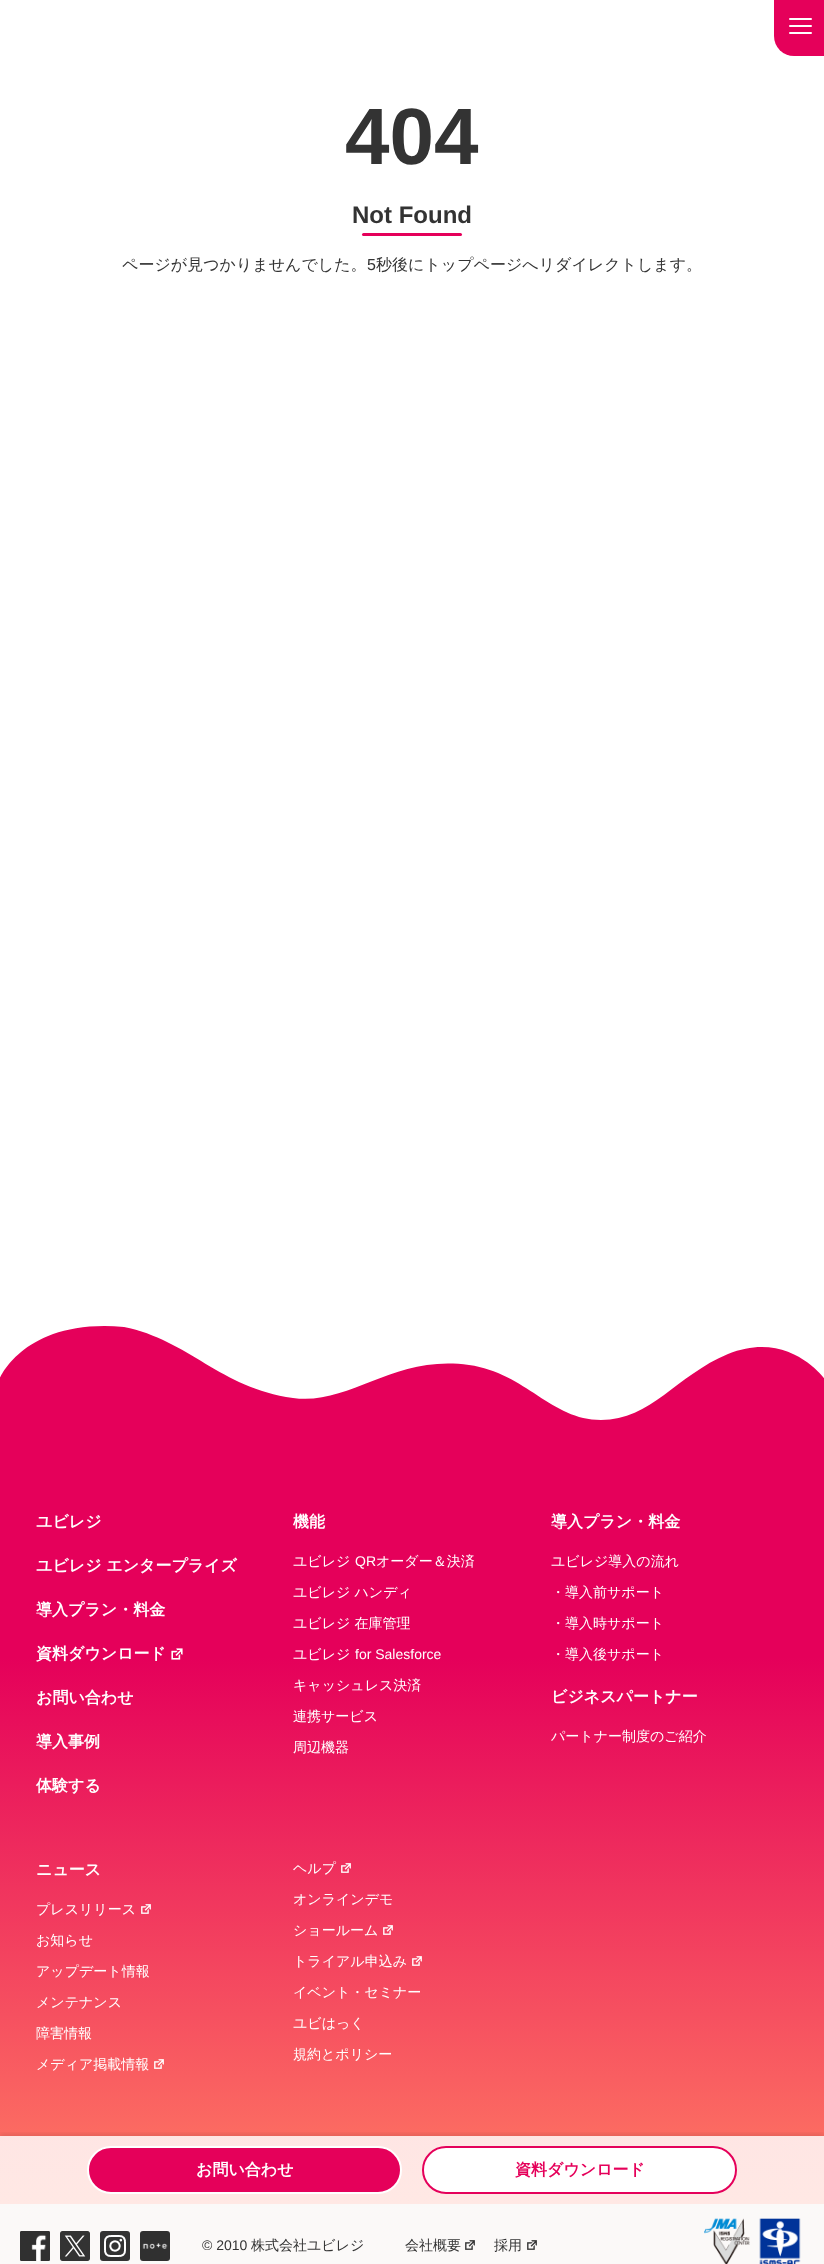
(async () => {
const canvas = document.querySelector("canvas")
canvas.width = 824
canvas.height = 2264
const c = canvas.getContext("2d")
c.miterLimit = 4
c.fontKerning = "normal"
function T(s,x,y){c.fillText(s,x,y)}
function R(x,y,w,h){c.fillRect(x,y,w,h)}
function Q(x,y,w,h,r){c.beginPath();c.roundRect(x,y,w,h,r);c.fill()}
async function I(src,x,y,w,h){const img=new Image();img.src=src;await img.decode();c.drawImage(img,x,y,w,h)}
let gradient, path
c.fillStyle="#fff"
R(0,0,824,2264)
c.fillStyle="#e5005a"
c.beginPath()
c.roundRect(774,0,50,56,[0,0,0,20])
c.fill()
c.fillStyle="#fff"
Q(789,18,23,2,1)
Q(789,25,23,2,1)
Q(789,32,23,2,1)
c.font="bold 80px Liberation Sans"
c.fillStyle="#333"
T("404",345,164)
c.font="bold 24px Liberation Sans"
T("Not Found",352,223)
c.fillStyle="#e5005a"
Q(362,233,100,3,1.5)
c.font="500 16px WenQuanYi Zen Hei"
c.fillStyle="#333"
T("ページが見つかりませんでした。",122,270)
c.font="16px Liberation Sans"
T("5",367,270)
c.font="500 16px WenQuanYi Zen Hei"
T("秒後にトップページへリダイレクトします。",376,270)
gradient = c.createLinearGradient(412,1450,412,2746)
gradient.addColorStop(.16,"#e5005a")
gradient.addColorStop(.58,"#ff7a63")
gradient.addColorStop(1,"#ffd683")
c.fillStyle = gradient
R(0,1451,824,685)
gradient = c.createLinearGradient(412,1450,412,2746)
gradient.addColorStop(.16,"#fbd4e3")
gradient.addColorStop(.58,"#ffe8e4")
gradient.addColorStop(1,"#fff8ea")
c.fillStyle = gradient
R(0,2136,824,68)
c.save()
c.beginPath()
c.rect(0,1326,824,125)
c.clip()
c.fillStyle="#e5005a"
path = new Path2D("M0 1378c0 0 25-60 124-51c65 13 96 61 169 71c57 8 100-44 176-33c57 8 82 55 132 55c50 0 76-45 127-66c60-25 96 24 96 24v509h-824z")
c.fill(path)
c.restore()
c.font="bold 16px WenQuanYi Zen Hei"
c.fillStyle="#fff"
T("ユビレジ",36,1527)
T("ユビレジ エンタープライズ",36,1571)
T("導入プラン・料金",36,1615)
T("資料ダウンロード",36,1659)
await I("1.png",171,1648,12,12)
T("お問い合わせ",36,1703)
T("導入事例",36,1747)
T("体験する",36,1791)
T("機能",293,1527)
c.font="500 14px WenQuanYi Zen Hei"
T("ユビレジ",293,1566)
c.font="14px Liberation Sans"
T("QR",355,1566)
c.font="500 14px WenQuanYi Zen Hei"
T("オーダー＆決済",376,1566)
T("ユビレジ ハンディ",293,1597)
T("ユビレジ 在庫管理",293,1628)
T("ユビレジ",293,1659)
c.font="14px Liberation Sans"
T("for Salesforce",355,1659)
c.font="500 14px WenQuanYi Zen Hei"
T("キャッシュレス決済",293,1690)
T("連携サービス",293,1721)
T("周辺機器",293,1752)
c.font="bold 16px WenQuanYi Zen Hei"
T("導入プラン・料金",551,1527)
c.font="500 14px WenQuanYi Zen Hei"
T("ユビレジ導入の流れ",551,1566)
T("・導入前サポート",551,1597)
T("・導入時サポート",551,1628)
T("・導入後サポート",551,1659)
c.font="bold 16px WenQuanYi Zen Hei"
T("ビジネスパートナー",551,1702)
c.font="500 14px WenQuanYi Zen Hei"
T("パートナー制度のご紹介",551,1741)
c.font="bold 16px WenQuanYi Zen Hei"
T("ニュース",36,1875)
c.font="500 14px WenQuanYi Zen Hei"
T("プレスリリース",36,1914)
await I("2.png",141,1904,10,10)
T("お知らせ",36,1945)
T("アップデート情報",36,1976)
T("メンテナンス",36,2007)
T("障害情報",36,2038)
T("メディア掲載情報",36,2069)
await I("3.png",154,2059,10,10)
T("ヘルプ",293,1873)
await I("4.png",341,1863,10,10)
T("オンラインデモ",293,1904)
T("ショールーム",293,1935)
await I("5.png",383,1925,10,10)
T("トライアル申込み",293,1966)
await I("6.png",412,1956,10,10)
T("イベント・セミナー",293,1997)
T("ユビはっく",293,2028)
T("規約とポリシー",293,2059)
c.fillStyle="#fbf9f8"
R(0,2204,824,60)
await I("7.png",20,2231,30,30)
await I("8.png",60,2231,30,30)
await I("9.png",100,2231,30,30)
await I("10.png",140,2231,30,30)
c.font="14px Liberation Sans"
c.fillStyle="#333"
T("© 2010",202,2250)
c.font="500 14px WenQuanYi Zen Hei"
T("株式会社ユビレジ",251,2250)
T("会社概要",405,2250)
await I("11.png",465,2240,10,10)
T("採用",494,2250)
await I("11.png",527,2240,10,10)
await I("12.png",704,2218,97,46)
c.save()
c.beginPath()
c.rect(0,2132,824,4)
c.clip()
c.fillStyle="#0000001a"
c.filter="blur(2.5px)"
c.beginPath()
c.rect(0,2134,824,68)
c.fill()
c.filter="none"
c.restore()
c.fillStyle="#e5005a"
c.beginPath()
c.roundRect(88,2147,313,46,23)
c.fill()
c.strokeStyle="#fff"
c.lineWidth=2
c.stroke()
c.font="bold 16px WenQuanYi Zen Hei"
c.fillStyle="#fff"
T("お問い合わせ",196,2175)
c.beginPath()
c.roundRect(423,2147,313,46,23)
c.fill()
c.strokeStyle="#e5005a"
c.stroke()
c.fillStyle="#e5005a"
T("資料ダウンロード",515,2175)
})()
